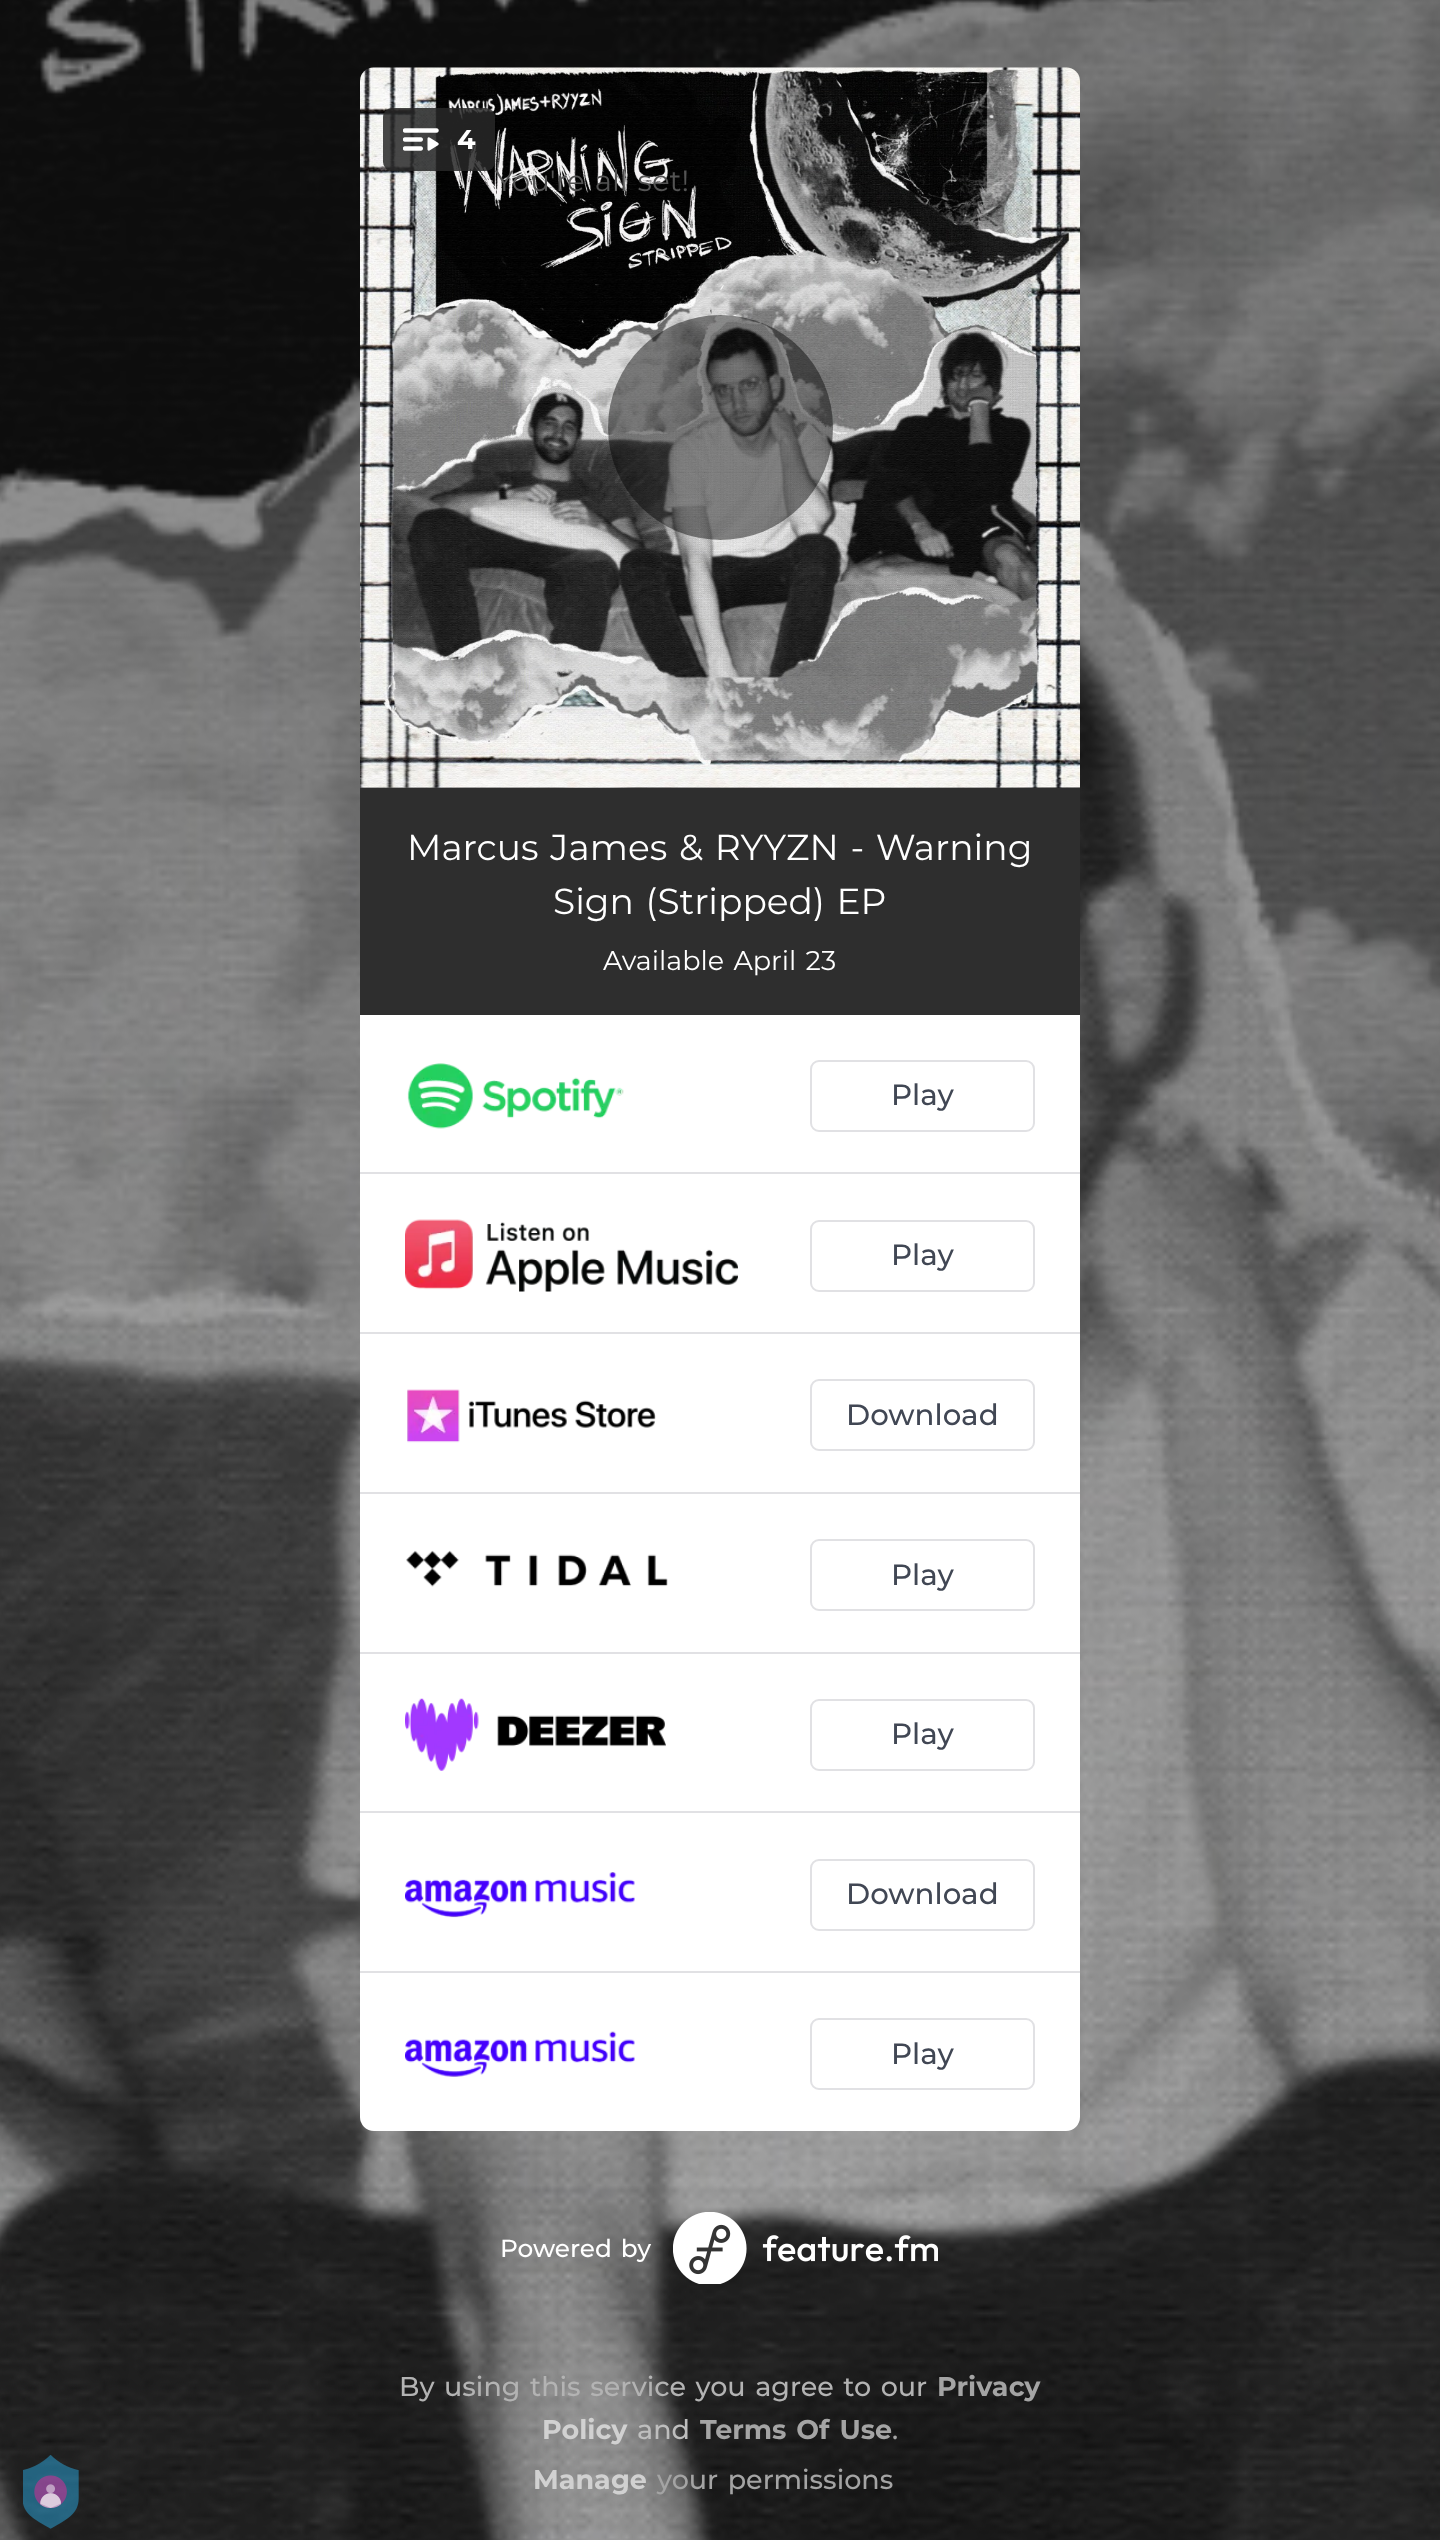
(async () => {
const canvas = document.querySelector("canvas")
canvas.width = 1440
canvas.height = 2540
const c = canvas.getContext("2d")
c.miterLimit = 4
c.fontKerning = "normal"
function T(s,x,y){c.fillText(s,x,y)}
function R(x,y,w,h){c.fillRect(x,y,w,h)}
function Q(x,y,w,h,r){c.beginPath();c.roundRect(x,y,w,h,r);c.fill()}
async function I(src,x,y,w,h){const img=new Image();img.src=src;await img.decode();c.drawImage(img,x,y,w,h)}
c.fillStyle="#fff"
R(0,0,1440,2540)
await I("2.png",0,0,1440,2540)
await I("1.png",23,2455,56,74)
await I("3.png",360,67,720,721)
c.fillStyle="#282828d9"
Q(383,108,112,63,9)
await I("4.png",403,128,36,23)
c.font="bold 27px Montserrat"
c.fillStyle="#fff"
T("4",457,149)
c.fillStyle="#00000073"
c.beginPath()
c.arc(720.5,427.5,112.5,0,7)
c.fill()
c.wordSpacing="2.25px"
c.font="29.25px Montserrat"
c.fillStyle="#545454"
T("You're all set!",495,191)
c.fillStyle="#2e2e2e"
R(360,788,720,227)
c.font="36px Montserrat"
c.fillStyle="#fff"
T("Marcus James & RYYZN - Warning",407,860)
T("Sign (Stripped) EP",553,914)
c.font="27px Montserrat"
T("Available April 23",603,970)
c.beginPath()
c.roundRect(360,1015,720,1116,[0,0,14,14])
c.fill()
c.fillStyle="#e1e1e4"
R(360,1172,720,2)
await I("5.png",407,1063,217,66)
c.beginPath()
c.roundRect(811,1061,223,70,8)
c.strokeStyle="#e1e1e4"
c.lineWidth=2
c.stroke()
c.wordSpacing="0px"
c.font="500 29.25px Montserrat"
c.fillStyle="#414754"
T("Play",891,1105)
c.fillStyle="#e1e1e4"
R(360,1332,720,2)
await I("6.png",405,1219,333,73)
c.beginPath()
c.roundRect(811,1221,223,70,8)
c.stroke()
c.fillStyle="#414754"
T("Play",891,1265)
c.fillStyle="#e1e1e4"
R(360,1492,720,2)
await I("7.png",407,1389,249,54)
c.beginPath()
c.roundRect(811,1380,223,70,8)
c.stroke()
c.fillStyle="#414754"
T("Download",846,1425)
c.fillStyle="#e1e1e4"
R(360,1652,720,2)
await I("8.png",406,1550,262,37)
c.beginPath()
c.roundRect(811,1540,223,70,8)
c.stroke()
c.fillStyle="#414754"
T("Play",891,1585)
c.fillStyle="#e1e1e4"
R(360,1811,720,2)
await I("9.png",405,1698,261,73)
c.beginPath()
c.roundRect(811,1700,223,70,8)
c.stroke()
c.fillStyle="#414754"
T("Play",891,1744)
c.fillStyle="#e1e1e4"
R(360,1971,720,2)
await I("10.png",405,1872,230,46)
c.beginPath()
c.roundRect(811,1860,223,70,8)
c.stroke()
c.fillStyle="#414754"
T("Download",846,1904)
await I("11.png",405,2031,230,46)
c.beginPath()
c.roundRect(811,2019,223,70,8)
c.stroke()
T("Play",891,2064)
c.wordSpacing="2.25px"
c.font="500 24.75px Montserrat"
c.fillStyle="#fff"
T("Powered by",500,2257)
await I("12.png",673,2212,265,72)
c.font="500 27px Montserrat"
c.fillStyle="#b3b3b3"
T("By using this service you agree to our",399,2396)
c.wordSpacing="0px"
c.font="bold 27px Montserrat"
c.fillStyle="#a4a4a4"
T("Privacy",937,2396)
c.fillStyle="#d1d1d1"
T("Policy",542,2439)
c.font="500 27px Montserrat"
c.fillStyle="#bebebe"
T("and",637,2439)
c.wordSpacing="2.25px"
c.font="bold 27px Montserrat"
c.fillStyle="#a4a4a4"
T("Terms Of Use",700,2439)
c.wordSpacing="0px"
c.font="500 27px Montserrat"
T(".",892,2439)
c.font="bold 27px Montserrat"
c.fillStyle="#d1d1d1"
T("Manage",533,2489)
c.wordSpacing="2.25px"
c.font="500 27px Montserrat"
c.fillStyle="#a4a4a4"
T("your permissions",657,2489)
})()
